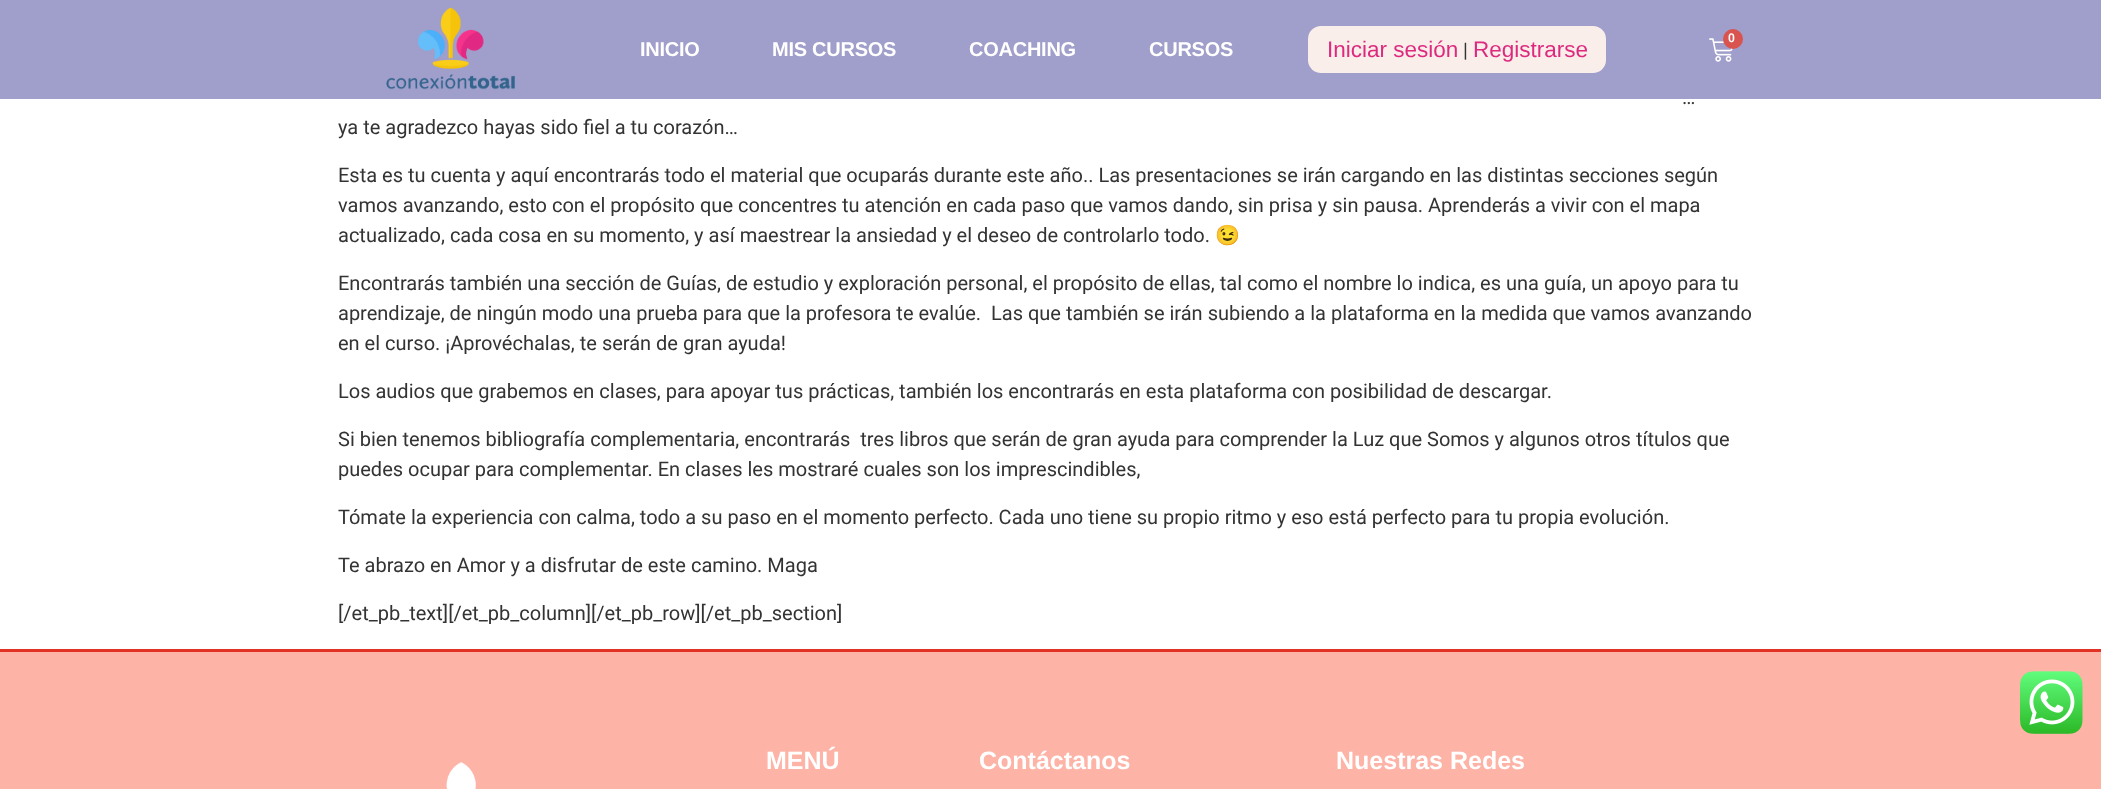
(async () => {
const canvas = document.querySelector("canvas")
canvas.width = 2101
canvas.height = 789
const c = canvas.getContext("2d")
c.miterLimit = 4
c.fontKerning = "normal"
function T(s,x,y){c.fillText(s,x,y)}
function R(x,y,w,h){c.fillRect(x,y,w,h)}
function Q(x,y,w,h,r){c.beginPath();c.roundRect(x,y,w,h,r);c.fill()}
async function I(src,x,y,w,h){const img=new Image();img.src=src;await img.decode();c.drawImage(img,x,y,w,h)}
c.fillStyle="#fff"
R(0,0,2101,789)
c.fillStyle="#a09eca"
R(0,0,2101,99)
await I("1.png",386,7,129,83)
await I("2.png",1709,38,24,24)
c.fillStyle="#d9534f"
c.beginPath()
c.arc(1733,39,10,0,7)
c.fill()
c.font="600 12px Roboto"
c.fillStyle="#fff"
T("0",1728,42)
c.letterSpacing="-0.25px"
c.font="bold 20px Liberation Sans"
T("INICIO",640,56)
T("MIS CURSOS",772,56)
T("COACHING",969,56)
T("CURSOS",1149,56)
c.fillStyle="#faeeea"
Q(1308,26,298,47,13)
c.letterSpacing="0px"
c.font="22.5px Liberation Sans"
c.fillStyle="#dd297e"
T("Iniciar sesión",1327,57)
c.font="20px Roboto"
c.fillStyle="#333"
T("|",1463,57)
c.font="22.5px Liberation Sans"
c.fillStyle="#dd297e"
T("Registrarse",1473,57)
c.font="20px Roboto"
c.fillStyle="#333"
T("…",1682,104)
T("ya te agradezco hayas sido fiel a tu corazón…",338,134)
T("Esta es tu cuenta y aquí encontrarás todo el material que ocuparás durante este año.. Las presentaciones se irán cargando en las distintas secciones según",338,182)
T("vamos avanzando, esto con el propósito que concentres tu atención en cada paso que vamos dando, sin prisa y sin pausa. Aprenderás a vivir con el mapa",338,212)
T("actualizado, cada cosa en su momento, y así maestrear la ansiedad y el deseo de controlarlo todo.",338,242)
c.font="20px Noto Color Emoji"
T("😉",1215,242)
c.font="20px Roboto"
T("Encontrarás también una sección de Guías, de estudio y exploración personal, el propósito de ellas, tal como el nombre lo indica, es una guía, un apoyo para tu",338,290)
T("aprendizaje, de ningún modo una prueba para que la profesora te evalúe.  Las que también se irán subiendo a la plataforma en la medida que vamos avanzando",338,320)
T("en el curso. ¡Aprovéchalas, te serán de gran ayuda!",338,350)
T("Los audios que grabemos en clases, para apoyar tus prácticas, también los encontrarás en esta plataforma con posibilidad de descargar.",338,398)
T("Si bien tenemos bibliografía complementaria, encontrarás  tres libros que serán de gran ayuda para comprender la Luz que Somos y algunos otros títulos que",338,446)
T("puedes ocupar para complementar. En clases les mostraré cuales son los imprescindibles,",338,476)
T("Tómate la experiencia con calma, todo a su paso en el momento perfecto. Cada uno tiene su propio ritmo y eso está perfecto para tu propia evolución.",338,524)
T("Te abrazo en Amor y a disfrutar de este camino. Maga",338,572)
T("[/et_pb_text][/et_pb_column][/et_pb_row][/et_pb_section]",338,620)
c.fillStyle="#feb3a7"
R(0,652,2101,137)
await I("3.png",2020,671,63,63)
c.fillStyle="#e23125"
R(0,649,2101,3)
c.font="bold 25px Liberation Sans"
c.fillStyle="#fff"
T("MENÚ",766,769)
T("Contáctanos",979,769)
T("Nuestras Redes",1336,769)
await I("4.png",446,762,30,27)
})()
